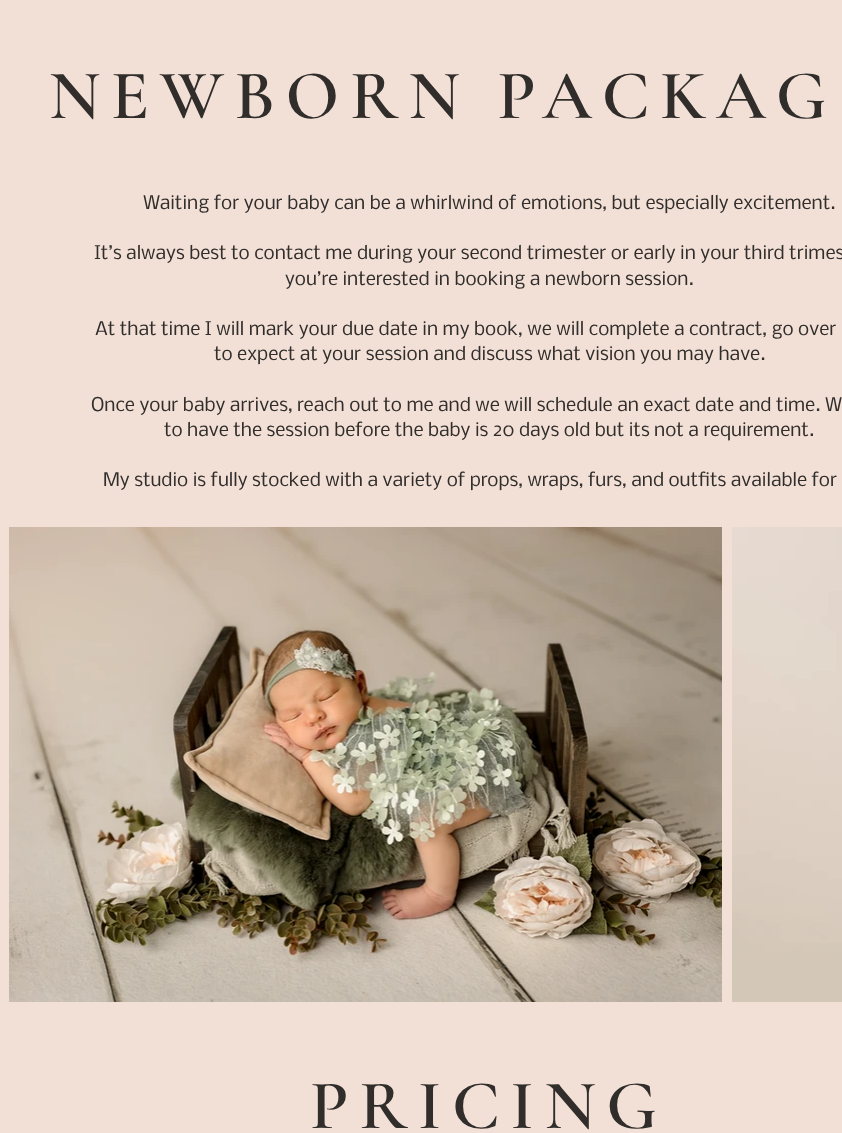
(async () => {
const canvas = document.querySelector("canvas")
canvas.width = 842
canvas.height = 1133
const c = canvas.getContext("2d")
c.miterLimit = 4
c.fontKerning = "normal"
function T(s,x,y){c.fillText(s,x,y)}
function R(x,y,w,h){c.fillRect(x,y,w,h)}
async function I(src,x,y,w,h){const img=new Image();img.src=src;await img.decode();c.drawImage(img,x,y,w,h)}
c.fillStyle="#f2e0d7"
R(0,0,842,1133)
c.letterSpacing="10.5px"
c.font="600 70px Cormorant Garamond"
c.fillStyle="#302d2b"
T("NEWBORN PACKAG",49,118)
c.letterSpacing="0px"
c.font="18px Nobile"
T("Waiting for your baby can be a whirlwind of emotions, but especially excitement.",143,209)
T("It’s always best to contact me during your second trimester or early in your third trimes",94,259)
T("you’re interested in booking a newborn session.",285,285)
T("At that time I will mark your due date in my book, we will complete a contract, go over",95,335)
T("to expect at your session and discuss what vision you may have.",214,360)
T("Once your baby arrives, reach out to me and we will schedule an exact date and time. W",91,411)
T("to have the session before the baby is 20 days old but its not a requirement.",164,436)
T("My studio is fully stocked with a variety of props, wraps, furs, and outfits available for",103,486)
await I("1.png",9,527,713,475)
await I("2.png",732,527,110,475)
c.letterSpacing="10.5px"
c.font="600 70px Cormorant Garamond"
T("PRICING",310,1128)
})()
